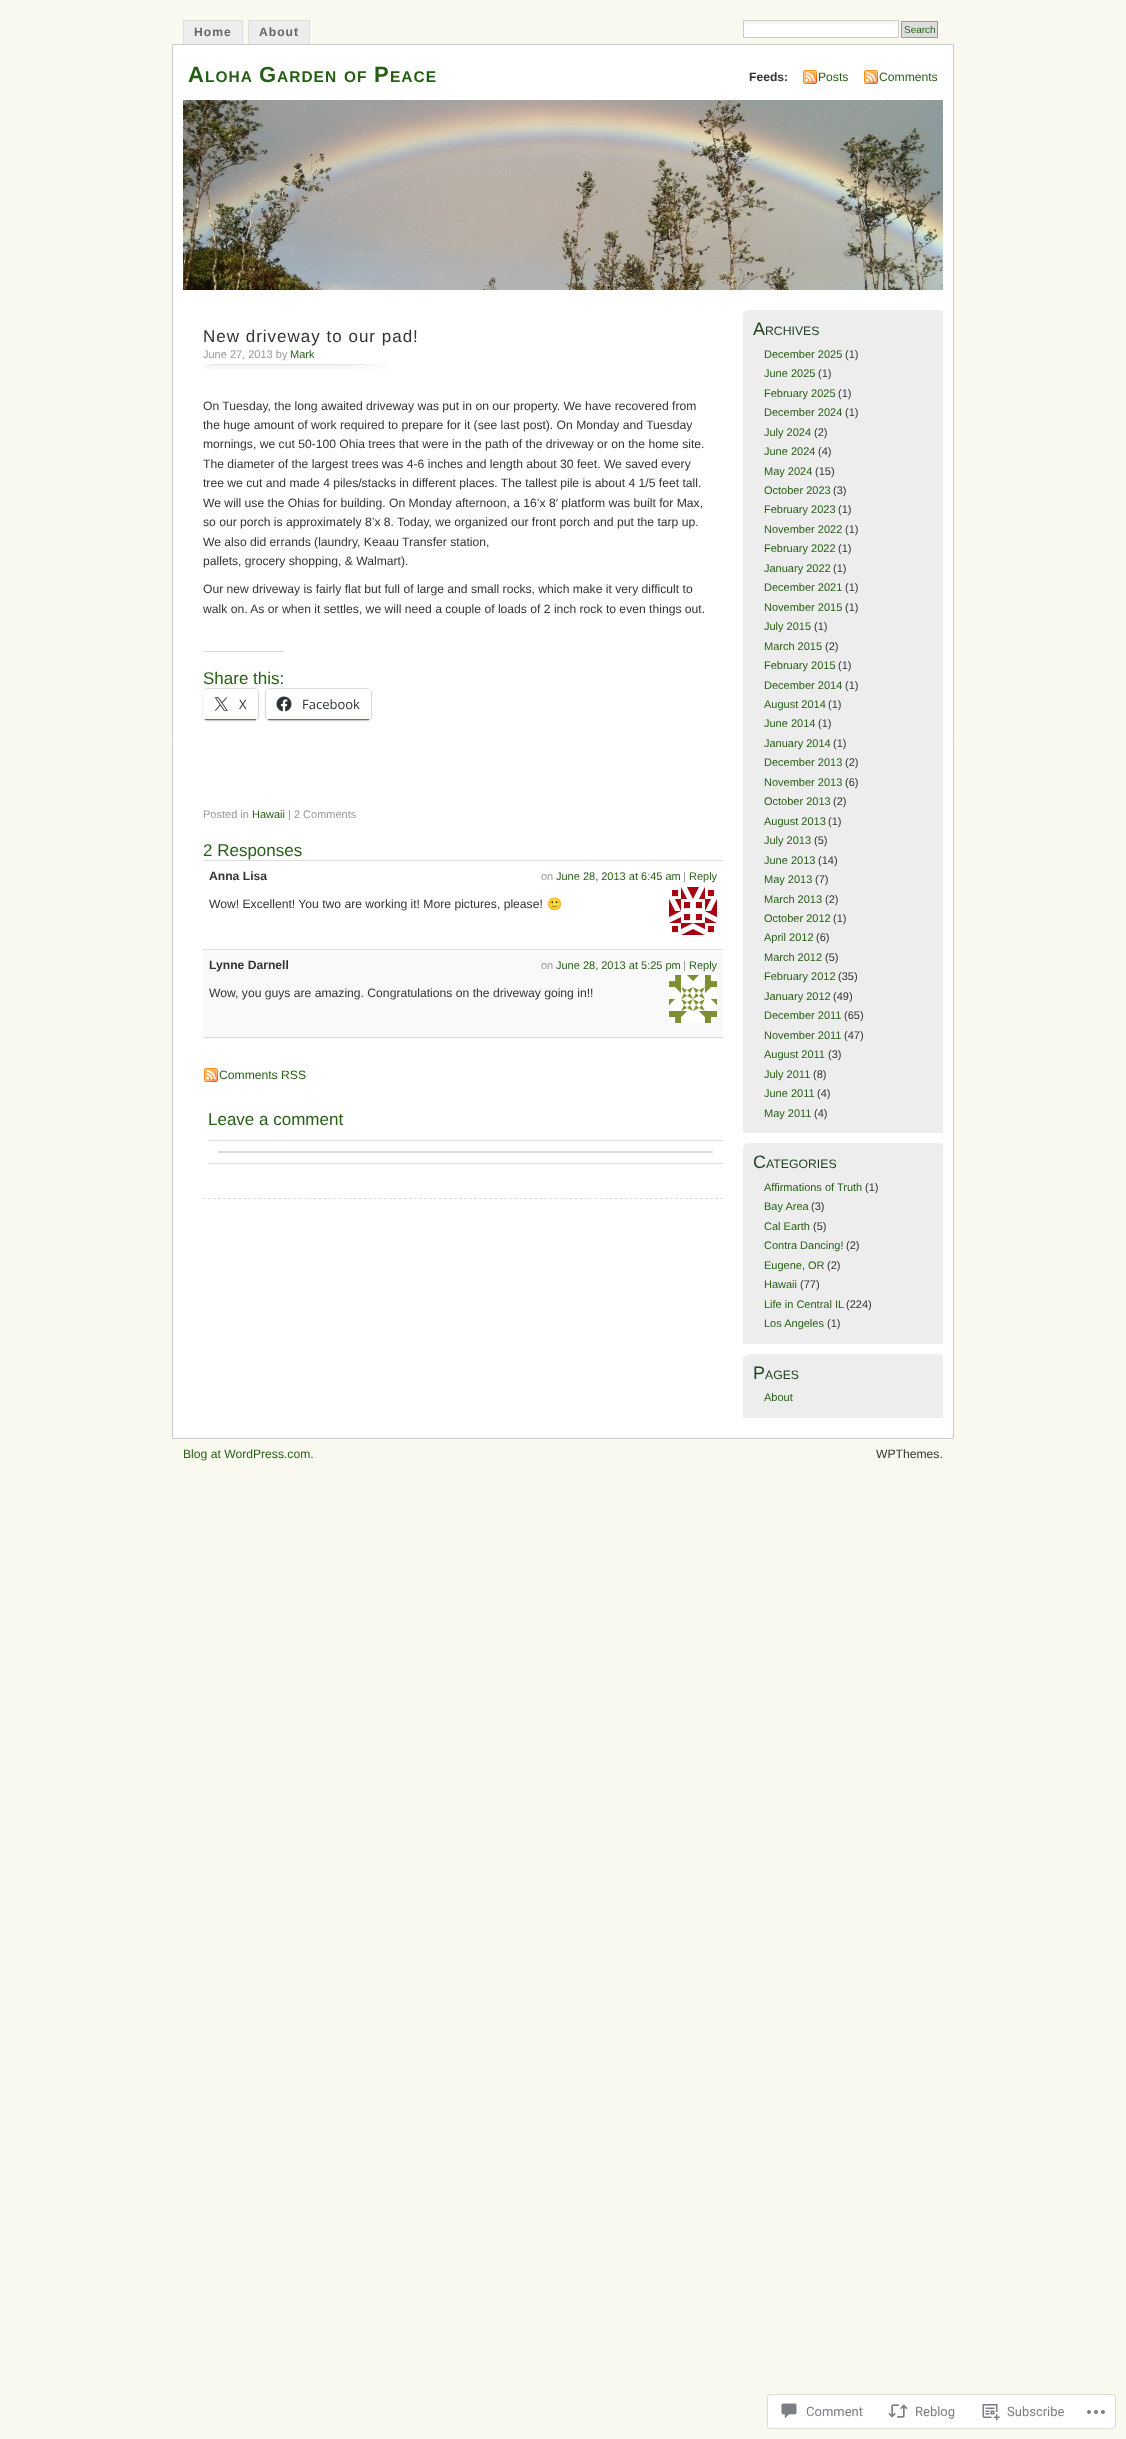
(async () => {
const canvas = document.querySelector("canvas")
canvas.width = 1126
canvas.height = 2439
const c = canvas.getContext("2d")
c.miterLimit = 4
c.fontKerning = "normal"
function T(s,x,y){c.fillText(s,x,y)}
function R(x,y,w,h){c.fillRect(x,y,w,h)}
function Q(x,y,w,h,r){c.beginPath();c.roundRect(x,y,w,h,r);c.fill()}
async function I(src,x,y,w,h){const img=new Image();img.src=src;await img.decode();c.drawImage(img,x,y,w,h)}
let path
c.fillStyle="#f9f9f0"
R(0,0,1126,2439)
c.fillStyle="#ededed"
R(184,21,58,23)
c.fillStyle="#dedede"
R(183,20,60,1)
R(242,20,1,24)
R(183,20,1,24)
c.letterSpacing="1px"
c.font="bold 12.15px Liberation Sans"
c.fillStyle="#666"
T("Home",194,36)
c.fillStyle="#ededed"
R(249,21,60,23)
c.fillStyle="#dedede"
R(248,20,62,1)
R(309,20,1,24)
R(248,20,1,24)
c.fillStyle="#666"
T("About",259,36)
c.fillStyle="#fff"
R(744,24,154,13)
c.fillStyle="#f6f5f6"
R(743,21,156,3)
c.strokeStyle="#ccc"
c.strokeRect(743.5,20.5,155,17)
c.fillStyle="#ddd"
c.beginPath()
c.rect(901.5,21.5,36,16)
c.fill()
c.strokeStyle="#999"
c.stroke()
c.letterSpacing="0px"
c.font="10px Liberation Sans"
c.fillStyle="#265e15"
T("Search",904,33)
c.fillStyle="#fff"
c.beginPath()
c.rect(172.5,44.5,781,1394)
c.fill()
c.strokeStyle="#ccc"
c.stroke()
c.letterSpacing="1px"
c.font="bold 22px Liberation Sans"
c.fillStyle="#265e15"
T("A",188,82)
c.font="bold 15.5px Liberation Sans"
T("LOHA",205,82)
c.font="bold 22px Liberation Sans"
T("G",259,82)
c.font="bold 15.5px Liberation Sans"
T("ARDEN",277,82)
T("OF",344,82)
c.font="bold 22px Liberation Sans"
T("P",374,82)
c.font="bold 15.5px Liberation Sans"
T("EACE",390,82)
c.letterSpacing="0px"
c.font="bold 12.15px Liberation Sans"
c.fillStyle="#333"
T("Feeds:",749,81)
await I("1.png",803,70,14,14)
c.font="12.15px Liberation Sans"
c.fillStyle="#265e15"
T("Posts",818,81)
await I("1.png",864,70,14,14)
T("Comments",879,81)
await I("2.png",183,100,760,190)
path = new Path2D("M203 1198.5h520")
c.strokeStyle="#ddd"
c.setLineDash([3,2.02])
c.stroke(path)
c.letterSpacing="1px"
c.font="17px Liberation Sans"
c.fillStyle="#333"
T("New driveway to our pad!",203,342)
await I("3.png",203,363,184,7)
c.letterSpacing="0px"
c.font="11px Liberation Sans"
c.fillStyle="#999"
T("June 27, 2013 by",203,358)
c.fillStyle="#265e15"
T("Mark",290,358)
c.font="12.15px Liberation Sans"
c.fillStyle="#333"
T("On Tuesday, the long awaited driveway was put in on our property. We have recovered from",203,410)
T("the huge amount of work required to prepare for it (see last post). On Monday and Tuesday",203,429)
T("mornings, we cut 50-100 Ohia trees that were in the path of the driveway or on the home site.",203,448)
T("The diameter of the largest trees was 4-6 inches and length about 30 feet. We saved every",203,468)
T("tree we cut and made 4 piles/stacks in different places. The tallest pile is about 4 1/5 feet tall.",203,487)
T("We will use the Ohias for building. On Monday afternoon, a 16’x 8′ platform was built for Max,",203,507)
T("so our porch is approximately 8’x 8. Today, we organized our front porch and put the tarp up.",203,526)
T("We also did errands (laundry, Keaau Transfer station,",203,546)
T("pallets, grocery shopping, & Walmart).",203,565)
T("Our new driveway is fairly flat but full of large and small rocks, which make it very difficult to",203,593)
T("walk on. As or when it settles, we will need a couple of loads of 2 inch rock to even things out.",203,613)
c.fillStyle="#dcdcde"
R(203,651,81,1)
c.font="17px Liberation Sans"
c.fillStyle="#265e15"
T("Share this:",203,684)
c.save()
c.beginPath()
c.rect(203,388,520,406)
c.clip()
c.beginPath()
c.roundRect(202.5,688.5,56,32,4.5)
c.strokeStyle="#e0e0e0"
c.setLineDash([])
c.stroke()
c.restore()
c.fillStyle="#0000001f"
c.filter="blur(1px)"
c.beginPath()
c.roundRect(203,690,55,31,4)
c.fill()
c.filter="none"
c.fillStyle="#fff"
Q(203,689,55,31,4)
c.fillStyle="#963"
R(205,719,51,1)
await I("4.png",214,697,14,14)
c.font="13px Open Sans"
c.fillStyle="#2c3338"
T("X",239,709)
c.beginPath()
c.roundRect(265.5,688.5,106,32,4.5)
c.strokeStyle="#e0e0e0"
c.setLineDash([])
c.stroke()
c.fillStyle="#0000001f"
c.filter="blur(1px)"
c.beginPath()
c.roundRect(266,690,105,31,4)
c.fill()
c.filter="none"
c.fillStyle="#fff"
Q(266,689,105,31,4)
c.fillStyle="#963"
R(268,719,101,1)
await I("5.png",276,696,16,16)
c.fillStyle="#2c3338"
T("Facebook",302,709)
c.font="11px Liberation Sans"
c.fillStyle="#999"
T("Posted in",203,818)
c.fillStyle="#265e15"
T("Hawaii",252,818)
c.fillStyle="#999"
T("| 2 Comments",288,818)
c.font="17px Liberation Sans"
c.fillStyle="#265e15"
T("2 Responses",203,856)
c.fillStyle="#ddd"
R(203,860,520,1)
R(203,949,520,1)
c.font="bold 12.15px Liberation Sans"
c.fillStyle="#333"
T("Anna Lisa",209,880)
c.font="11px Liberation Sans"
c.fillStyle="#999"
T("on",541,880)
c.fillStyle="#265e15"
T("June 28, 2013 at 6:45 am",556,880)
c.fillStyle="#999"
T("|",683,880)
c.fillStyle="#265e15"
T("Reply",689,880)
await I("6.png",669,887,48,48)
c.font="12.15px Liberation Sans"
c.fillStyle="#333"
T("Wow! Excellent! You two are working it! More pictures, please!",209,908)
c.font="12.15px Noto Color Emoji"
T("🙂",547,908)
c.fillStyle="#f9f9f9"
R(203,950,520,87)
c.fillStyle="#ddd"
R(203,1037,520,1)
c.font="bold 12.15px Liberation Sans"
c.fillStyle="#333"
T("Lynne Darnell",209,969)
c.font="11px Liberation Sans"
c.fillStyle="#999"
T("on",541,969)
c.fillStyle="#265e15"
T("June 28, 2013 at 5:25 pm",556,969)
c.fillStyle="#999"
T("|",683,969)
c.fillStyle="#265e15"
T("Reply",689,969)
await I("7.png",669,975,48,48)
c.font="12.15px Liberation Sans"
c.fillStyle="#333"
T("Wow, you guys are amazing. Congratulations on the driveway going in!!",209,997)
await I("1.png",204,1068,14,14)
c.fillStyle="#265e15"
T("Comments RSS",219,1079)
c.font="17px Liberation Sans"
T("Leave a comment",208,1125)
c.fillStyle="#ddd"
R(208,1140,515,1)
R(208,1163,515,1)
c.fillStyle="#dcdcde"
R(218,1151,495,2)
c.fillStyle="#ededed"
R(743,313,200,820)
await I("8.png",743,310,200,3)
c.font="18px Liberation Sans"
c.fillStyle="#242"
T("A",753,335)
c.font="12.25px Liberation Sans"
T("RCHIVES",765,335)
c.font="11px Liberation Sans"
c.fillStyle="#265e15"
T("December 2025",764,358)
c.fillStyle="#333"
T("(1)",845,358)
c.fillStyle="#265e15"
T("June 2025",764,377)
c.fillStyle="#333"
T("(1)",818,377)
c.fillStyle="#265e15"
T("February 2025",764,397)
c.fillStyle="#333"
T("(1)",838,397)
c.fillStyle="#265e15"
T("December 2024",764,416)
c.fillStyle="#333"
T("(1)",845,416)
c.fillStyle="#265e15"
T("July 2024",764,436)
c.fillStyle="#333"
T("(2)",814,436)
c.fillStyle="#265e15"
T("June 2024",764,455)
c.fillStyle="#333"
T("(4)",818,455)
c.fillStyle="#265e15"
T("May 2024",764,475)
c.fillStyle="#333"
T("(15)",815,475)
c.fillStyle="#265e15"
T("October 2023",764,494)
c.fillStyle="#333"
T("(3)",833,494)
c.fillStyle="#265e15"
T("February 2023",764,513)
c.fillStyle="#333"
T("(1)",838,513)
c.fillStyle="#265e15"
T("November 2022",764,533)
c.fillStyle="#333"
T("(1)",845,533)
c.fillStyle="#265e15"
T("February 2022",764,552)
c.fillStyle="#333"
T("(1)",838,552)
c.fillStyle="#265e15"
T("January 2022",764,572)
c.fillStyle="#333"
T("(1)",833,572)
c.fillStyle="#265e15"
T("December 2021",764,591)
c.fillStyle="#333"
T("(1)",845,591)
c.fillStyle="#265e15"
T("November 2015",764,611)
c.fillStyle="#333"
T("(1)",845,611)
c.fillStyle="#265e15"
T("July 2015",764,630)
c.fillStyle="#333"
T("(1)",814,630)
c.fillStyle="#265e15"
T("March 2015",764,650)
c.fillStyle="#333"
T("(2)",825,650)
c.fillStyle="#265e15"
T("February 2015",764,669)
c.fillStyle="#333"
T("(1)",838,669)
c.fillStyle="#265e15"
T("December 2014",764,689)
c.fillStyle="#333"
T("(1)",845,689)
c.fillStyle="#265e15"
T("August 2014",764,708)
c.fillStyle="#333"
T("(1)",828,708)
c.fillStyle="#265e15"
T("June 2014",764,727)
c.fillStyle="#333"
T("(1)",818,727)
c.fillStyle="#265e15"
T("January 2014",764,747)
c.fillStyle="#333"
T("(1)",833,747)
c.fillStyle="#265e15"
T("December 2013",764,766)
c.fillStyle="#333"
T("(2)",845,766)
c.fillStyle="#265e15"
T("November 2013",764,786)
c.fillStyle="#333"
T("(6)",845,786)
c.fillStyle="#265e15"
T("October 2013",764,805)
c.fillStyle="#333"
T("(2)",833,805)
c.fillStyle="#265e15"
T("August 2013",764,825)
c.fillStyle="#333"
T("(1)",828,825)
c.fillStyle="#265e15"
T("July 2013",764,844)
c.fillStyle="#333"
T("(5)",814,844)
c.fillStyle="#265e15"
T("June 2013",764,864)
c.fillStyle="#333"
T("(14)",818,864)
c.fillStyle="#265e15"
T("May 2013",764,883)
c.fillStyle="#333"
T("(7)",815,883)
c.fillStyle="#265e15"
T("March 2013",764,903)
c.fillStyle="#333"
T("(2)",825,903)
c.fillStyle="#265e15"
T("October 2012",764,922)
c.fillStyle="#333"
T("(1)",833,922)
c.fillStyle="#265e15"
T("April 2012",764,941)
c.fillStyle="#333"
T("(6)",816,941)
c.fillStyle="#265e15"
T("March 2012",764,961)
c.fillStyle="#333"
T("(5)",825,961)
c.fillStyle="#265e15"
T("February 2012",764,980)
c.fillStyle="#333"
T("(35)",838,980)
c.fillStyle="#265e15"
T("January 2012",764,1000)
c.fillStyle="#333"
T("(49)",833,1000)
c.fillStyle="#265e15"
T("December 2011",764,1019)
c.fillStyle="#333"
T("(65)",844,1019)
c.fillStyle="#265e15"
T("November 2011",764,1039)
c.fillStyle="#333"
T("(47)",844,1039)
c.fillStyle="#265e15"
T("August 2011",764,1058)
c.fillStyle="#333"
T("(3)",828,1058)
c.fillStyle="#265e15"
T("July 2011",764,1078)
c.fillStyle="#333"
T("(8)",813,1078)
c.fillStyle="#265e15"
T("June 2011",764,1097)
c.fillStyle="#333"
T("(4)",817,1097)
c.fillStyle="#265e15"
T("May 2011",764,1117)
c.fillStyle="#333"
T("(4)",814,1117)
c.fillStyle="#ededed"
R(743,1146,200,198)
await I("8.png",743,1143,200,3)
c.font="18px Liberation Sans"
c.fillStyle="#242"
T("C",753,1168)
c.font="12.25px Liberation Sans"
T("ATEGORIES",766,1168)
c.font="11px Liberation Sans"
c.fillStyle="#265e15"
T("Affirmations of Truth",764,1191)
c.fillStyle="#333"
T("(1)",865,1191)
c.fillStyle="#265e15"
T("Bay Area",764,1210)
c.fillStyle="#333"
T("(3)",811,1210)
c.fillStyle="#265e15"
T("Cal Earth",764,1230)
c.fillStyle="#333"
T("(5)",813,1230)
c.fillStyle="#265e15"
T("Contra Dancing!",764,1249)
c.fillStyle="#333"
T("(2)",846,1249)
c.fillStyle="#265e15"
T("Eugene, OR",764,1269)
c.fillStyle="#333"
T("(2)",827,1269)
c.fillStyle="#265e15"
T("Hawaii",764,1288)
c.fillStyle="#333"
T("(77)",800,1288)
c.fillStyle="#265e15"
T("Life in Central IL",764,1308)
c.fillStyle="#333"
T("(224)",846,1308)
c.fillStyle="#265e15"
T("Los Angeles",764,1327)
c.fillStyle="#333"
T("(1)",827,1327)
c.fillStyle="#ededed"
R(743,1358,200,60)
await I("9.png",743,1354,200,4)
c.font="18px Liberation Sans"
c.fillStyle="#242"
T("P",753,1379)
c.font="12.25px Liberation Sans"
T("AGES",765,1379)
c.font="11px Liberation Sans"
c.fillStyle="#265e15"
T("About",764,1401)
c.font="12.15px Liberation Sans"
T("Blog at WordPress.com.",183,1458)
c.fillStyle="#333"
T("WPThemes.",876,1458)
c.fillStyle="#fff"
c.beginPath()
c.roundRect(767.5,2394.5,348,34,2.5)
c.fill()
c.strokeStyle="#ddddde"
c.stroke()
await I("10.png",781,2403,16,16)
c.font="13px Roboto"
c.fillStyle="#7b7f84"
T("Comment",806,2416)
await I("11.png",888,2404,20,14)
T("Reblog",915,2416)
await I("12.png",982,2404,18,17)
T("Subscribe",1007,2416)
await I("13.png",1087,2410,18,4)
})()
